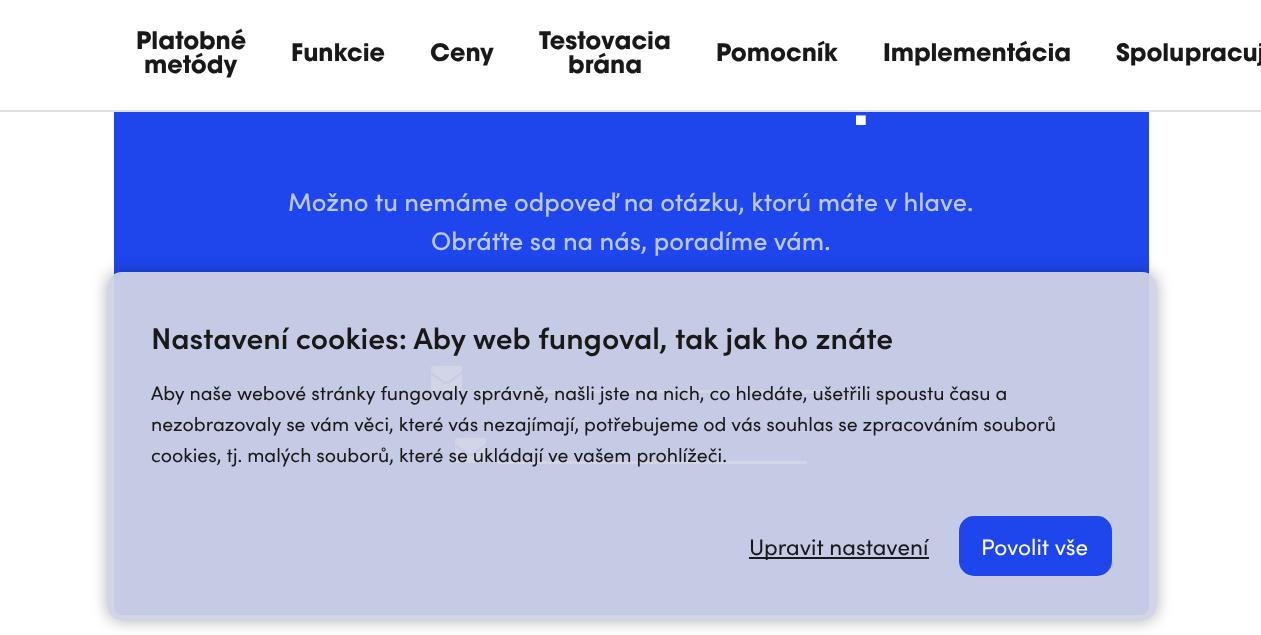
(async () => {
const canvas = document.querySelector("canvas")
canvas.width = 1261
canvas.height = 635
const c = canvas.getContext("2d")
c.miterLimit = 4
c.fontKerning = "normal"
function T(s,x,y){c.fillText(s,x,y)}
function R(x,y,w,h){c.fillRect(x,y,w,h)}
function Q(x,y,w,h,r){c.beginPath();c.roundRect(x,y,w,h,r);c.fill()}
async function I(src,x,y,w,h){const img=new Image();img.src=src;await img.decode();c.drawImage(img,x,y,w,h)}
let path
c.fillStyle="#fff"
R(0,0,1261,635)
c.fillStyle="#1f46ed"
Q(114,-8,1035,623,8)
c.fillStyle="#fff"
R(114,0,1035,110)
c.fillStyle="#e1e1e1"
R(0,110,1261,2)
c.font="bold 24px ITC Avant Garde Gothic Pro"
c.fillStyle="#191919"
T("Platobné",136,49)
T("metódy",144,73)
T("Funkcie",291,61)
T("Ceny",430,61)
T("Testovacia",539,49)
T("brána",568,73)
T("Pomocník",716,61)
T("Implementácia",883,61)
T("Spolupracuj",1116,61)
c.font="bold 56px ITC Avant Garde Gothic Pro"
c.fillStyle="#fff"
T(".",852,125)
c.font="500 25.5px Sofia"
c.fillStyle="#bcc8fa"
T("Možno tu nemáme odpoveď na otázku, ktorú máte v hlave.",288,211)
T("Obráťte sa na nás, poradíme vám.",431,250)
await I("1.png",431,366,31,25)
c.fillStyle="#fff"
R(474,390,357,3)
await I("1.png",455,438,31,25)
R(498,461,309,3)
c.save()
path = new Path2D("M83 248h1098v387h-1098zm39 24h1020c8.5 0 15 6.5 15 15v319c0 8.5-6.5 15-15 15h-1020c-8.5 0-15-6.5-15-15v-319c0-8.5 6.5-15 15-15z")
c.clip(path,"evenodd")
c.fillStyle="#0000004d"
c.filter="blur(7.5px)"
c.beginPath()
c.roundRect(107,272,1050,349,15)
c.fill()
c.filter="none"
c.restore()
c.fillStyle="#d0d3e5f2"
Q(107,272,1050,349,15)
c.font="600 30px Sofia"
c.fillStyle="#191919"
T("Nastavení cookies: Aby web fungoval, tak jak ho znáte",151,349)
c.font="19.5px Sofia"
T("Aby naše webové stránky fungovaly správně, našli jste na nich, co hledáte, ušetřili spoustu času a",151,400)
T("nezobrazovaly se vám věci, které vás nezajímají, potřebujeme od vás souhlas se zpracováním souborů",151,431)
T("cookies, tj. malých souborů, které se ukládají ve vašem prohlížeči.",151,462)
R(749,557,180,2)
c.font="22.5px Sofia"
T("Upravit nastavení",749,555)
c.fillStyle="#1f46ed"
Q(959,516,153,60,15)
c.fillStyle="#fff"
T("Povolit vše",981,555)
})()
